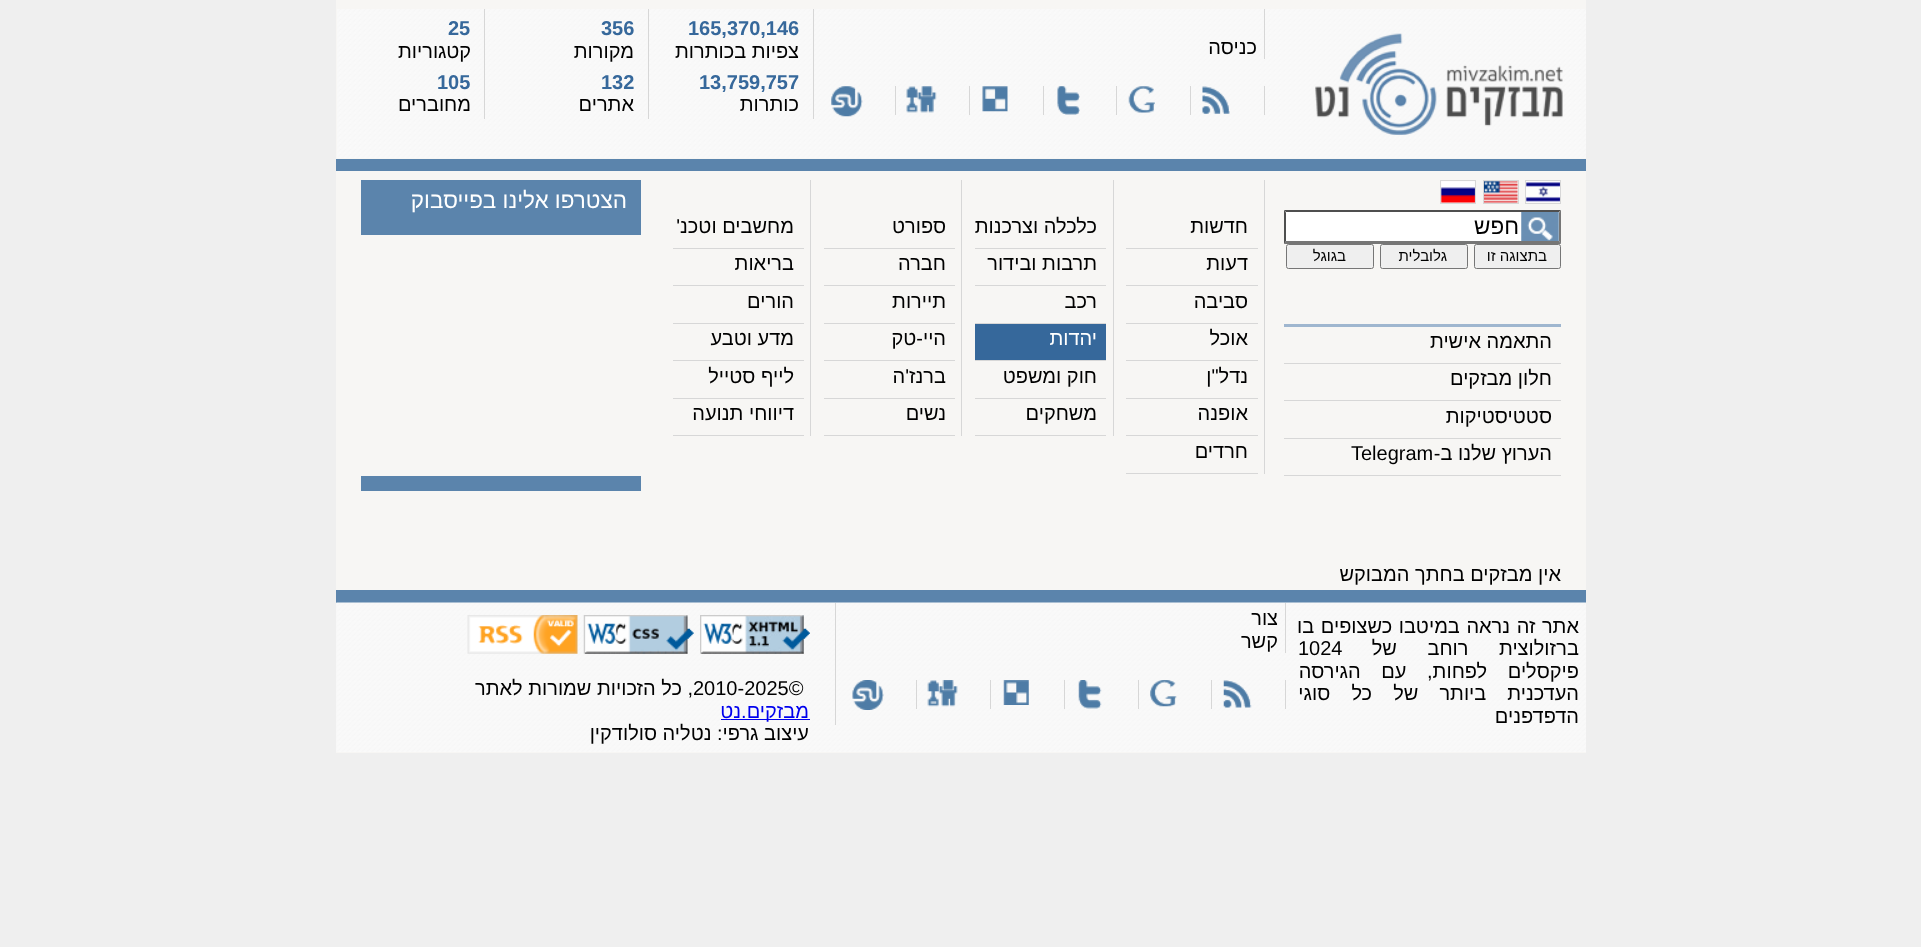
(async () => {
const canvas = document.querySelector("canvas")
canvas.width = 1921
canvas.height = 947
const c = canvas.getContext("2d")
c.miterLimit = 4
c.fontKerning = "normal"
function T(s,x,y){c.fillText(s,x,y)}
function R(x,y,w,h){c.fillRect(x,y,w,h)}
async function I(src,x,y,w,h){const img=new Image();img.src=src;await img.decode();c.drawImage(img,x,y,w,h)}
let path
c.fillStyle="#efefef"
R(0,0,1921,947)
c.fillStyle="#f7f6f4"
R(336,0,1250,753)
await I("1.png",337,9,1249,149)
await I("2.png",1315,33,248,102)
c.fillStyle="#d7d7d7"
R(1264,9,1,50)
c.direction="rtl"
c.font="20px Liberation Sans"
c.fillStyle="#000"
T("כניסה",1257,54)
c.fillStyle="#d7d7d7"
R(1264,86,1,29)
await I("3.png",1202,86,28,28)
R(1190,86,1,29)
await I("4.png",1128,86,27,27)
R(1116,86,1,29)
await I("5.png",1057,86,23,29)
R(1043,86,1,29)
await I("6.png",982,86,26,26)
R(969,86,1,29)
await I("7.png",906,86,31,27)
R(895,86,1,29)
await I("8.png",831,86,32,31)
R(813,9,1,110)
c.direction="ltr"
c.font="bold 20px Liberation Sans"
c.fillStyle="#36689b"
T("165,370,146",688,35)
c.direction="rtl"
c.font="20px Liberation Sans"
c.fillStyle="#000"
T("צפיות בכותרות",799,58)
c.direction="ltr"
c.font="bold 20px Liberation Sans"
c.fillStyle="#36689b"
T("13,759,757",699,89)
c.direction="rtl"
c.font="20px Liberation Sans"
c.fillStyle="#000"
T("כותרות",799,111)
c.fillStyle="#d7d7d7"
R(648,9,1,110)
c.direction="ltr"
c.font="bold 20px Liberation Sans"
c.fillStyle="#36689b"
T("356",601,35)
c.direction="rtl"
c.font="20px Liberation Sans"
c.fillStyle="#000"
T("מקורות",634,58)
c.direction="ltr"
c.font="bold 20px Liberation Sans"
c.fillStyle="#36689b"
T("132",601,89)
c.direction="rtl"
c.font="20px Liberation Sans"
c.fillStyle="#000"
T("אתרים",634,111)
c.fillStyle="#d7d7d7"
R(484,9,1,110)
c.direction="ltr"
c.font="bold 20px Liberation Sans"
c.fillStyle="#36689b"
T("25",448,35)
c.direction="rtl"
c.font="20px Liberation Sans"
c.fillStyle="#000"
T("קטגוריות",471,58)
c.direction="ltr"
c.font="bold 20px Liberation Sans"
c.fillStyle="#36689b"
T("105",437,89)
c.direction="rtl"
c.font="20px Liberation Sans"
c.fillStyle="#000"
T("מחוברים",471,111)
c.fillStyle="#5b84ac"
R(336,159,1250,12)
c.strokeStyle="#5b84ac"
c.lineWidth=8
c.strokeRect(365,184,272,47)
R(369,188,264,39)
c.font="22.5px Liberation Sans"
c.fillStyle="#fff"
T("הצטרפו אלינו בפייסבוק",627,208)
await I("9.png",1526,181,34,22)
c.strokeStyle="#d7d7d7"
c.lineWidth=1
c.strokeRect(1525.5,180.5,35,23)
await I("10.png",1484,181,34,22)
c.strokeRect(1483.5,180.5,35,23)
await I("11.png",1441,181,34,22)
c.strokeRect(1440.5,180.5,35,23)
R(1284,210,277,34)
await I("12.png",1521,212,38,29)
c.fillStyle="#4f4f4f"
path = new Path2D("M1284 210h277l-2 2h-273z")
c.fill(path)
c.fillStyle="#767676"
path = new Path2D("M1561 210v34l-2-3v-28.5z")
c.fill(path)
path = new Path2D("M1561 244h-277l2-3h273z")
c.fill(path)
c.fillStyle="#4f4f4f"
path = new Path2D("M1284 244v-34l2 2.5v28.5z")
c.fill(path)
c.fillStyle="#000"
T("חפש",1519,234)
c.fillStyle="#efefef"
c.beginPath()
c.roundRect(1474.5,244.5,86,24,2)
c.fill()
c.strokeStyle="#767676"
c.stroke()
c.font="15px Liberation Sans"
c.fillStyle="#000"
T("בתצוגה זו",1547,261)
c.fillStyle="#efefef"
c.beginPath()
c.roundRect(1380.5,244.5,87,24,2)
c.fill()
c.stroke()
c.fillStyle="#000"
T("גלובלית",1447,261)
c.fillStyle="#efefef"
c.beginPath()
c.roundRect(1286.5,244.5,87,24,2)
c.fill()
c.stroke()
c.fillStyle="#000"
T("בגוגל",1346,261)
c.fillStyle="#9fb6cf"
R(1284,324,277,3)
c.fillStyle="#d7d7d7"
R(1284,363,277,1)
c.font="20px Liberation Sans"
c.fillStyle="#000"
T("התאמה אישית",1552,348)
c.fillStyle="#d7d7d7"
R(1284,400,277,1)
c.fillStyle="#000"
T("חלון מבזקים",1552,385)
c.fillStyle="#d7d7d7"
R(1284,438,277,1)
c.fillStyle="#000"
T("סטטיסטיקות",1552,423)
c.fillStyle="#d7d7d7"
R(1284,475,277,1)
c.fillStyle="#000"
T("הערוץ שלנו ב-",1552,460)
c.direction="ltr"
T("Telegram",1351,460)
c.fillStyle="#d7d7d7"
R(1264,180,1,294)
R(1126,248,132,1)
c.direction="rtl"
c.fillStyle="#000"
T("חדשות",1248,233)
c.fillStyle="#d7d7d7"
R(1126,285,132,1)
c.fillStyle="#000"
T("דעות",1248,270)
c.fillStyle="#d7d7d7"
R(1126,323,132,1)
c.fillStyle="#000"
T("סביבה",1248,308)
c.fillStyle="#d7d7d7"
R(1126,360,132,1)
c.fillStyle="#000"
T("אוכל",1248,345)
c.fillStyle="#d7d7d7"
R(1126,398,132,1)
c.fillStyle="#000"
T("נדל\"ן",1248,383)
c.fillStyle="#d7d7d7"
R(1126,435,132,1)
c.fillStyle="#000"
T("אופנה",1248,420)
c.fillStyle="#d7d7d7"
R(1126,473,132,1)
c.fillStyle="#000"
T("חרדים",1248,458)
c.fillStyle="#d7d7d7"
R(1113,180,1,256)
R(975,248,131,1)
c.fillStyle="#000"
T("כלכלה וצרכנות",1097,233)
c.fillStyle="#d7d7d7"
R(975,285,131,1)
c.fillStyle="#000"
T("תרבות ובידור",1097,270)
c.fillStyle="#d7d7d7"
R(975,323,131,1)
c.fillStyle="#000"
T("רכב",1097,308)
c.fillStyle="#36689b"
R(975,324,131,36)
c.fillStyle="#d7d7d7"
R(975,360,131,1)
c.fillStyle="#fff"
T("יהדות",1097,345)
c.fillStyle="#d7d7d7"
R(975,398,131,1)
c.fillStyle="#000"
T("חוק ומשפט",1097,383)
c.fillStyle="#d7d7d7"
R(975,435,131,1)
c.fillStyle="#000"
T("משחקים",1097,420)
c.fillStyle="#d7d7d7"
R(961,180,1,256)
R(824,248,131,1)
c.fillStyle="#000"
T("ספורט",946,233)
c.fillStyle="#d7d7d7"
R(824,285,131,1)
c.fillStyle="#000"
T("חברה",946,270)
c.fillStyle="#d7d7d7"
R(824,323,131,1)
c.fillStyle="#000"
T("תיירות",946,308)
c.fillStyle="#d7d7d7"
R(824,360,131,1)
c.fillStyle="#000"
T("היי-טק",946,345)
c.fillStyle="#d7d7d7"
R(824,398,131,1)
c.fillStyle="#000"
T("ברנז'ה",946,383)
c.fillStyle="#d7d7d7"
R(824,435,131,1)
c.fillStyle="#000"
T("נשים",946,420)
c.fillStyle="#d7d7d7"
R(810,180,1,256)
R(673,248,131,1)
c.fillStyle="#000"
T("מחשבים וטכנ'",794,233)
c.fillStyle="#d7d7d7"
R(673,285,131,1)
c.fillStyle="#000"
T("בריאות",794,270)
c.fillStyle="#d7d7d7"
R(673,323,131,1)
c.fillStyle="#000"
T("הורים",794,308)
c.fillStyle="#d7d7d7"
R(673,360,131,1)
c.fillStyle="#000"
T("מדע וטבע",794,345)
c.fillStyle="#d7d7d7"
R(673,398,131,1)
c.fillStyle="#000"
T("לייף סטייל",794,383)
c.fillStyle="#d7d7d7"
R(673,435,131,1)
c.fillStyle="#000"
T("דיווחי תנועה",794,420)
c.fillStyle="#5b84ac"
R(361,476,280,15)
c.fillStyle="#000"
T("אין מבזקים בחתך המבוקש",1561,581)
c.fillStyle="#5b84ac"
R(336,590,1250,13)
await I("13.png",336,602,1250,150)
c.wordSpacing="1px"
c.fillStyle="#000"
T("אתר זה נראה במיטבו כשצופים בו",1579,633)
c.wordSpacing="25px"
T("ברזולוצית רוחב של",1579,655)
c.wordSpacing="0px"
c.direction="ltr"
T("1024",1298,655)
c.wordSpacing="15px"
c.direction="rtl"
T("פיקסלים לפחות, עם הגירסה",1579,678)
c.wordSpacing="15.5px"
T("העדכנית ביותר של כל סוגי",1579,700)
c.wordSpacing="0px"
T("הדפדפנים",1579,723)
c.fillStyle="#d7d7d7"
R(1285,603,1,50)
c.fillStyle="#000"
T("צור",1278,625)
T("קשר",1278,648)
c.fillStyle="#d7d7d7"
R(1285,680,1,29)
await I("14.png",1223,680,29,28)
R(1211,680,1,29)
await I("15.png",1150,680,27,27)
R(1138,680,1,29)
await I("16.png",1078,680,24,29)
R(1064,680,1,29)
await I("17.png",1003,680,26,25)
R(990,680,1,29)
await I("18.png",927,680,31,27)
R(916,680,1,29)
await I("19.png",852,680,32,30)
R(835,603,1,122)
await I("20.png",700,615,110,39)
await I("21.png",583,615,111,39)
await I("22.png",467,615,111,39)
c.direction="ltr"
c.fillStyle="#000"
T("2010-2025©",693,695)
c.direction="rtl"
T(", כל הזכויות שמורות לאתר",693,695)
c.fillStyle="#00e"
R(721,719,89,1)
T("מבזקים.נט",809,718)
c.fillStyle="#000"
T("עיצוב גרפי: נטליה סולודקין",809,740)
})()
